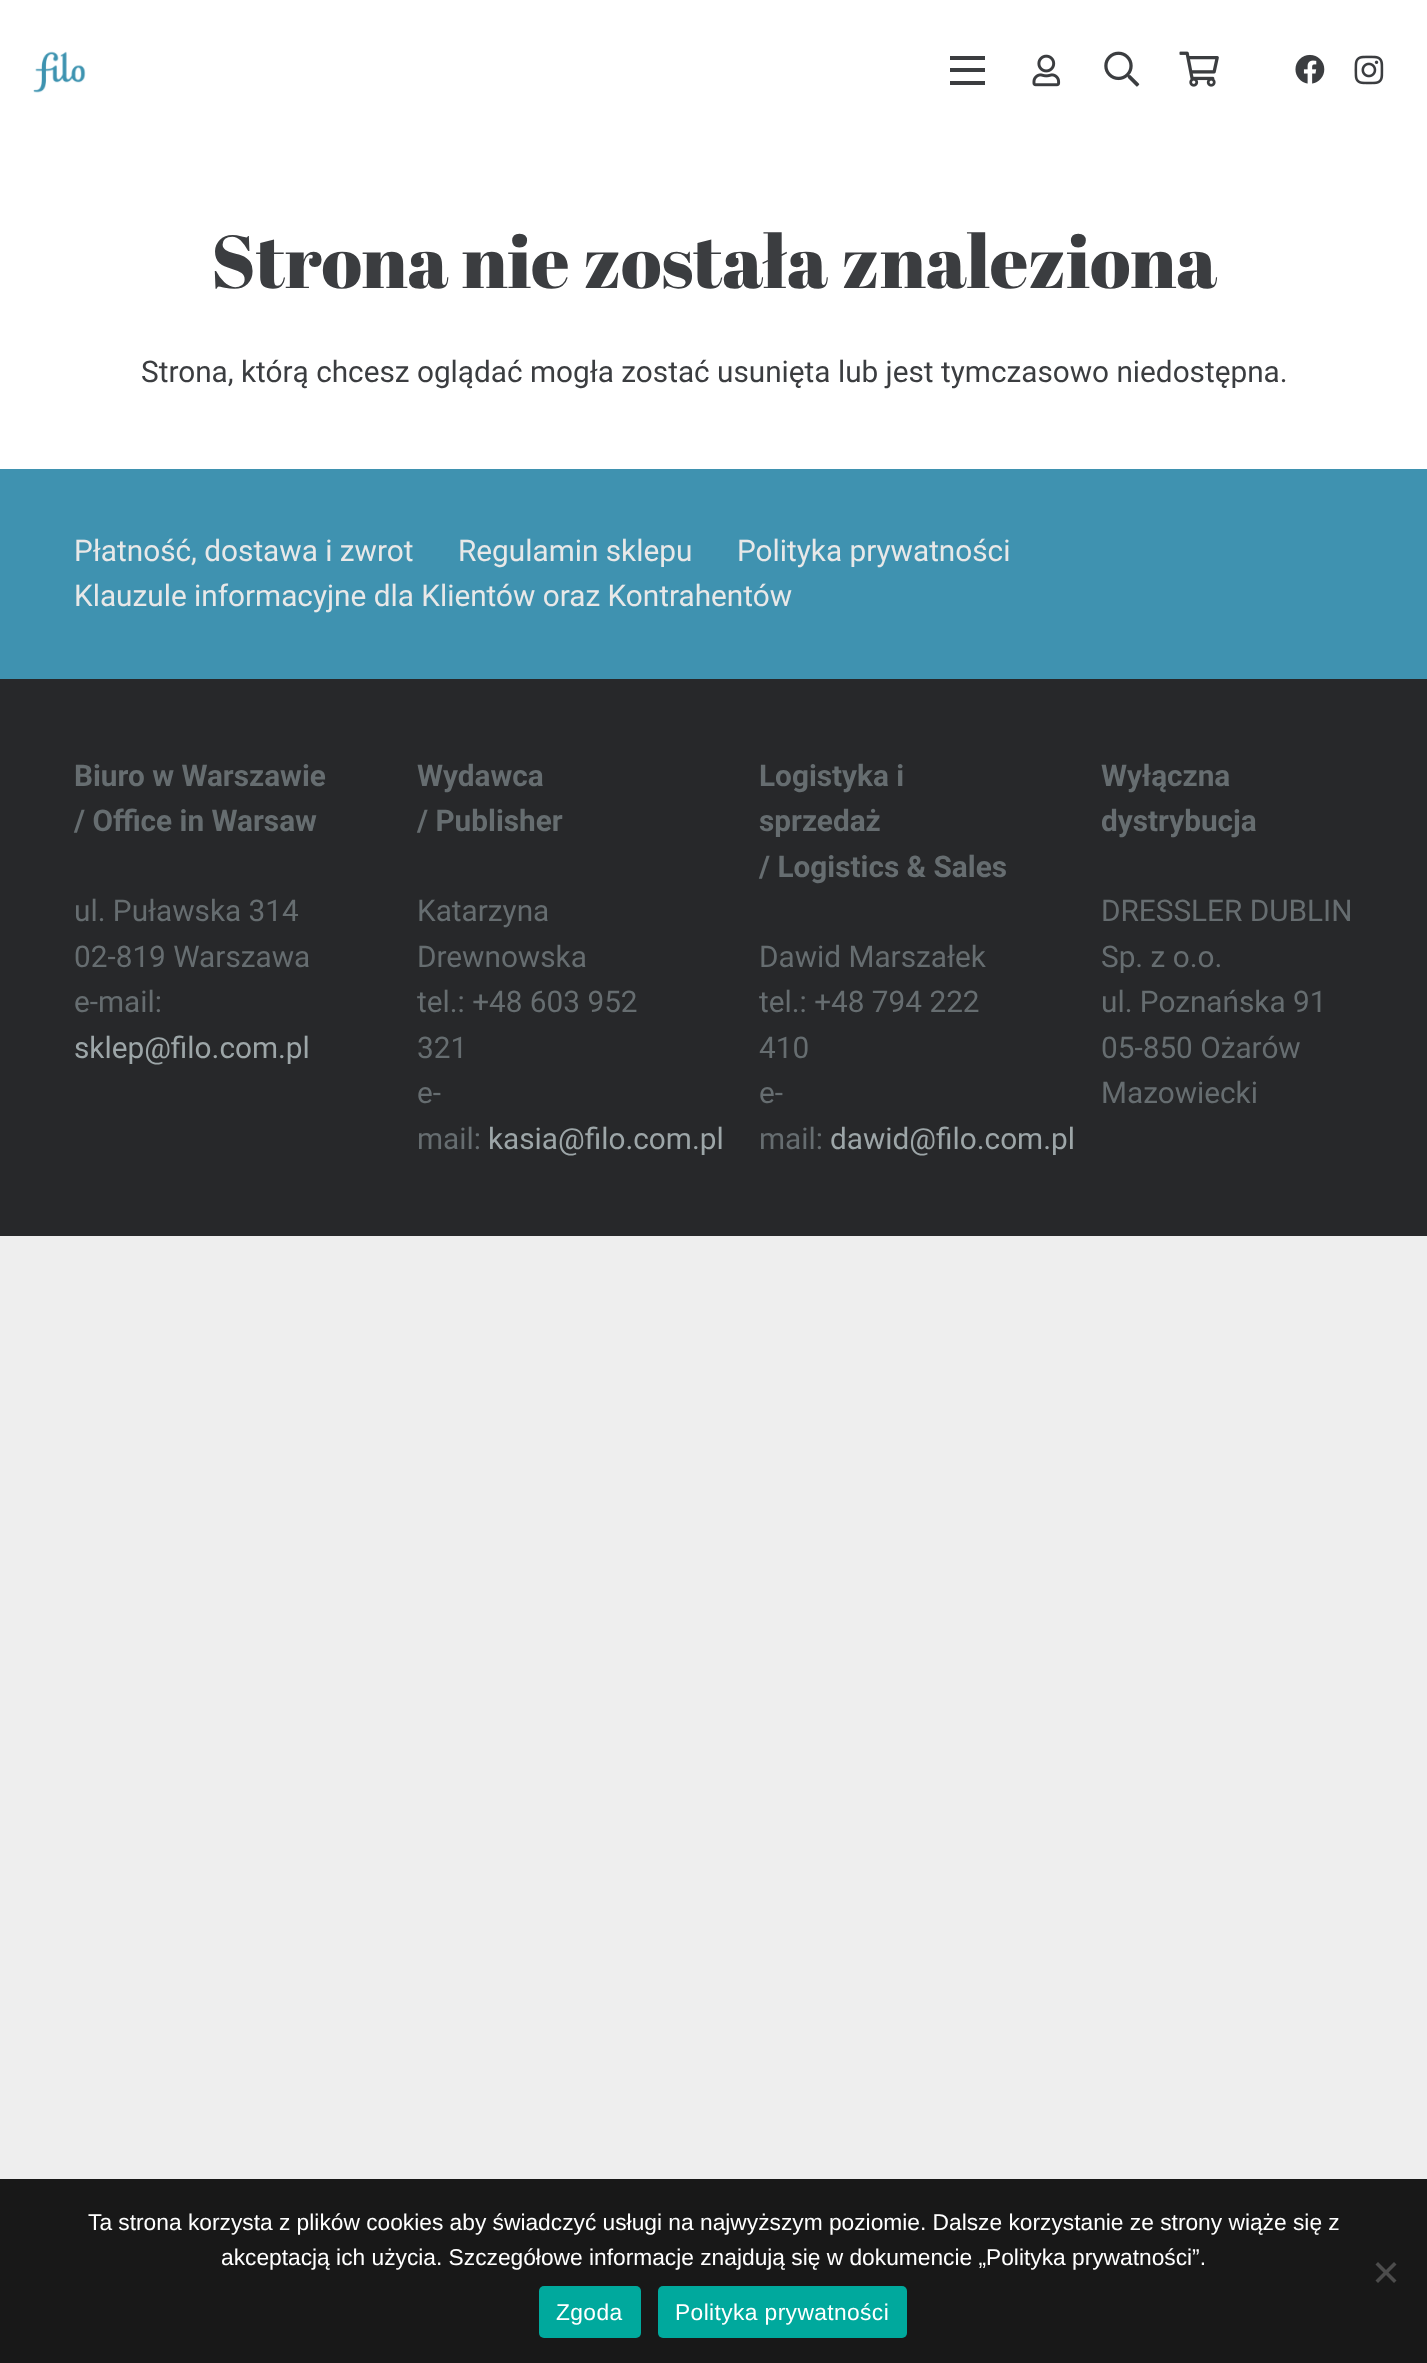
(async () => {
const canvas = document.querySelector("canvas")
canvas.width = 1427
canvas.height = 2363
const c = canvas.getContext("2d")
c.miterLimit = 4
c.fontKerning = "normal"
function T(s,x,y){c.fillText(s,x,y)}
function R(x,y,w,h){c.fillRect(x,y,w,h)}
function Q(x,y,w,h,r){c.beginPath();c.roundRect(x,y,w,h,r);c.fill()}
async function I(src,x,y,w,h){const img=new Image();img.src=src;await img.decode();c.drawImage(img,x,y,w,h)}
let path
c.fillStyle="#eee"
R(0,0,1427,2363)
c.fillStyle="#fff"
R(0,0,1427,469)
await I("1.png",33,51,53,42)
c.fillStyle="#3b3d40"
R(950,68,35,4)
R(950,56,35,4)
R(950,81,35,4)
await I("2.png",1032,54,29,33)
await I("3.png",1104,51,36,36)
await I("4.png",1179,51,40,36)
await I("5.png",1295,54,30,30)
await I("6.png",1354,55,30,30)
c.font="74.4px Abril Fatface"
T("Strona nie została znaleziona",211,288)
c.font="29.75px Roboto"
T("Strona, którą chcesz oglądać mogła zostać usunięta lub jest tymczasowo niedostępna.",141,382)
c.fillStyle="#3f92b0"
R(0,469,1427,210)
c.fillStyle="#e8e8e8"
T("Płatność, dostawa i zwrot",74,561)
T("Regulamin sklepu",458,561)
T("Polityka prywatności",737,561)
T("Klauzule informacyjne dla Klientów oraz Kontrahentów",74,606)
c.fillStyle="#27282a"
R(0,679,1427,557)
c.font="bold 29.75px Roboto"
c.fillStyle="#666d70"
T("Biuro w Warszawie",74,786)
T("/ Office in Warsaw",74,831)
c.font="29.75px Roboto"
T("ul. Puławska 314",74,921)
T("02-819 Warszawa",74,967)
T("e-mail:",74,1012)
c.fillStyle="#9da6a8"
T("sklep@filo.com.pl",74,1058)
c.font="bold 29.75px Roboto"
c.fillStyle="#666d70"
T("Wydawca",417,786)
T("/ Publisher",417,831)
c.font="29.75px Roboto"
T("Katarzyna",417,921)
T("Drewnowska",417,967)
T("tel.: +48 603 952",417,1012)
T("321",417,1058)
T("e-",417,1103)
T("mail:",417,1149)
c.fillStyle="#9da6a8"
T("kasia@filo.com.pl",488,1149)
c.font="bold 29.75px Roboto"
c.fillStyle="#666d70"
T("Logistyka i",759,786)
T("sprzedaż",759,831)
T("/ Logistics & Sales",759,877)
c.font="29.75px Roboto"
T("Dawid Marszałek",759,967)
T("tel.: +48 794 222",759,1012)
T("410",759,1058)
T("e-",759,1103)
T("mail:",759,1149)
c.fillStyle="#9da6a8"
T("dawid@filo.com.pl",830,1149)
c.font="bold 29.75px Roboto"
c.fillStyle="#666d70"
T("Wyłączna",1101,786)
T("dystrybucja",1101,831)
c.font="29.75px Roboto"
T("DRESSLER DUBLIN",1101,921)
T("Sp. z o.o.",1101,967)
T("ul. Poznańska 91",1101,1012)
T("05-850 Ożarów",1101,1058)
T("Mazowiecki",1101,1103)
c.fillStyle="#181818"
R(0,2179,1427,184)
c.font="22.75px Liberation Sans"
c.fillStyle="#fff"
T("Ta strona korzysta z plików cookies aby świadczyć usługi na najwyższym poziomie. Dalsze korzystanie ze strony wiąże się z",88,2230)
T("akceptacją ich użycia. Szczegółowe informacje znajdują się w dokumencie „Polityka prywatności”.",221,2265)
c.fillStyle="#4c4c4c"
path = new Path2D("M1394 2262l2.5 2.5l-18.5 18.5l-2.5-2.5z")
c.fill(path)
path = new Path2D("M1375.5 2264.5l2.5-2.5l18.5 18.5l-2.5 2.5z")
c.fill(path)
c.fillStyle="#00a99d"
Q(539,2286,102,52,5)
c.letterSpacing="0.4px"
c.fillStyle="#fff"
T("Zgoda",556,2320)
c.fillStyle="#00a99d"
Q(658,2286,249,52,5)
c.fillStyle="#fff"
T("Polityka prywatności",675,2320)
})()
